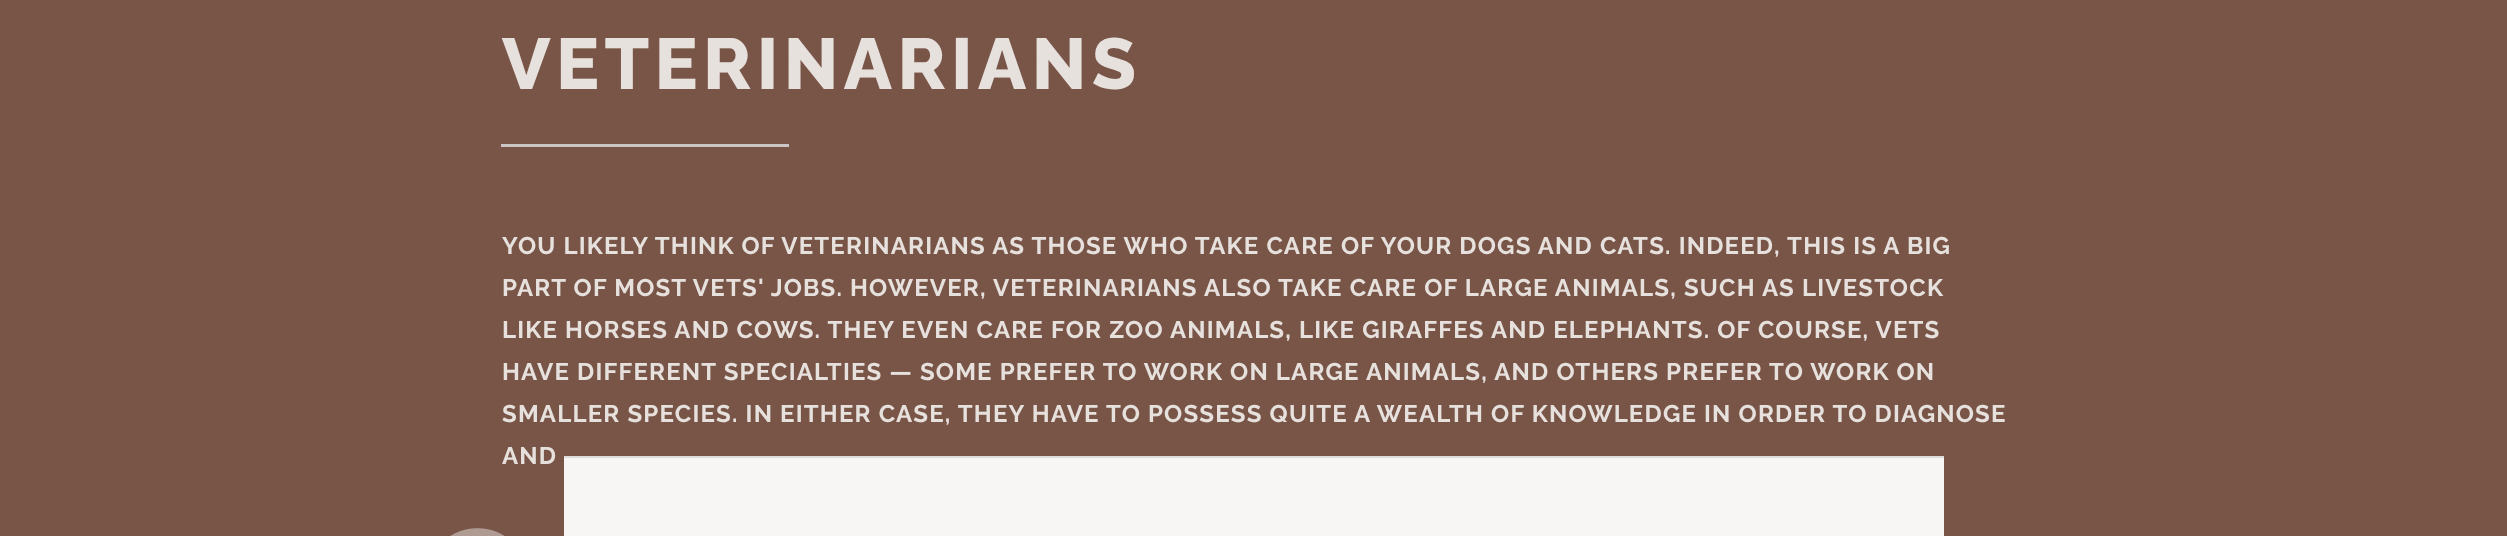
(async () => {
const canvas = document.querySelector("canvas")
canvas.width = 2507
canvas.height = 536
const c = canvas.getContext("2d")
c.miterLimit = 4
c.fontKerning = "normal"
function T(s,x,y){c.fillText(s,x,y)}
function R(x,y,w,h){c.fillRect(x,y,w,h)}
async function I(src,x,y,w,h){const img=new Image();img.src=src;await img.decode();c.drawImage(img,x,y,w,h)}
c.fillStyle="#795548"
R(0,0,2507,536)
c.letterSpacing="5.4px"
c.font="800 72px Raleway"
c.fillStyle="#e7e1de"
T("VETERINARIANS",502,89)
c.fillStyle="#cbc5c3"
R(501,144,288,3)
c.letterSpacing="1.2px"
c.font="bold 24px Raleway"
c.fillStyle="#e7e1de"
T("YOU LIKELY THINK OF VETERINARIANS AS THOSE WHO TAKE CARE OF YOUR DOGS AND CATS. INDEED, THIS IS A BIG",502,254)
T("PART OF MOST VETS' JOBS. HOWEVER, VETERINARIANS ALSO TAKE CARE OF LARGE ANIMALS, SUCH AS LIVESTOCK",502,296)
T("LIKE HORSES AND COWS. THEY EVEN CARE FOR ZOO ANIMALS, LIKE GIRAFFES AND ELEPHANTS. OF COURSE, VETS",502,338)
T("HAVE DIFFERENT SPECIALTIES — SOME PREFER TO WORK ON LARGE ANIMALS, AND OTHERS PREFER TO WORK ON",502,380)
T("SMALLER SPECIES. IN EITHER CASE, THEY HAVE TO POSSESS QUITE A WEALTH OF KNOWLEDGE IN ORDER TO DIAGNOSE",502,422)
T("AND",502,464)
await I("1.png",450,528,55,8)
c.fillStyle="#fffffff2"
R(564,458,1380,78)
c.fillStyle="#ddd"
R(564,456,1380,2)
})()
